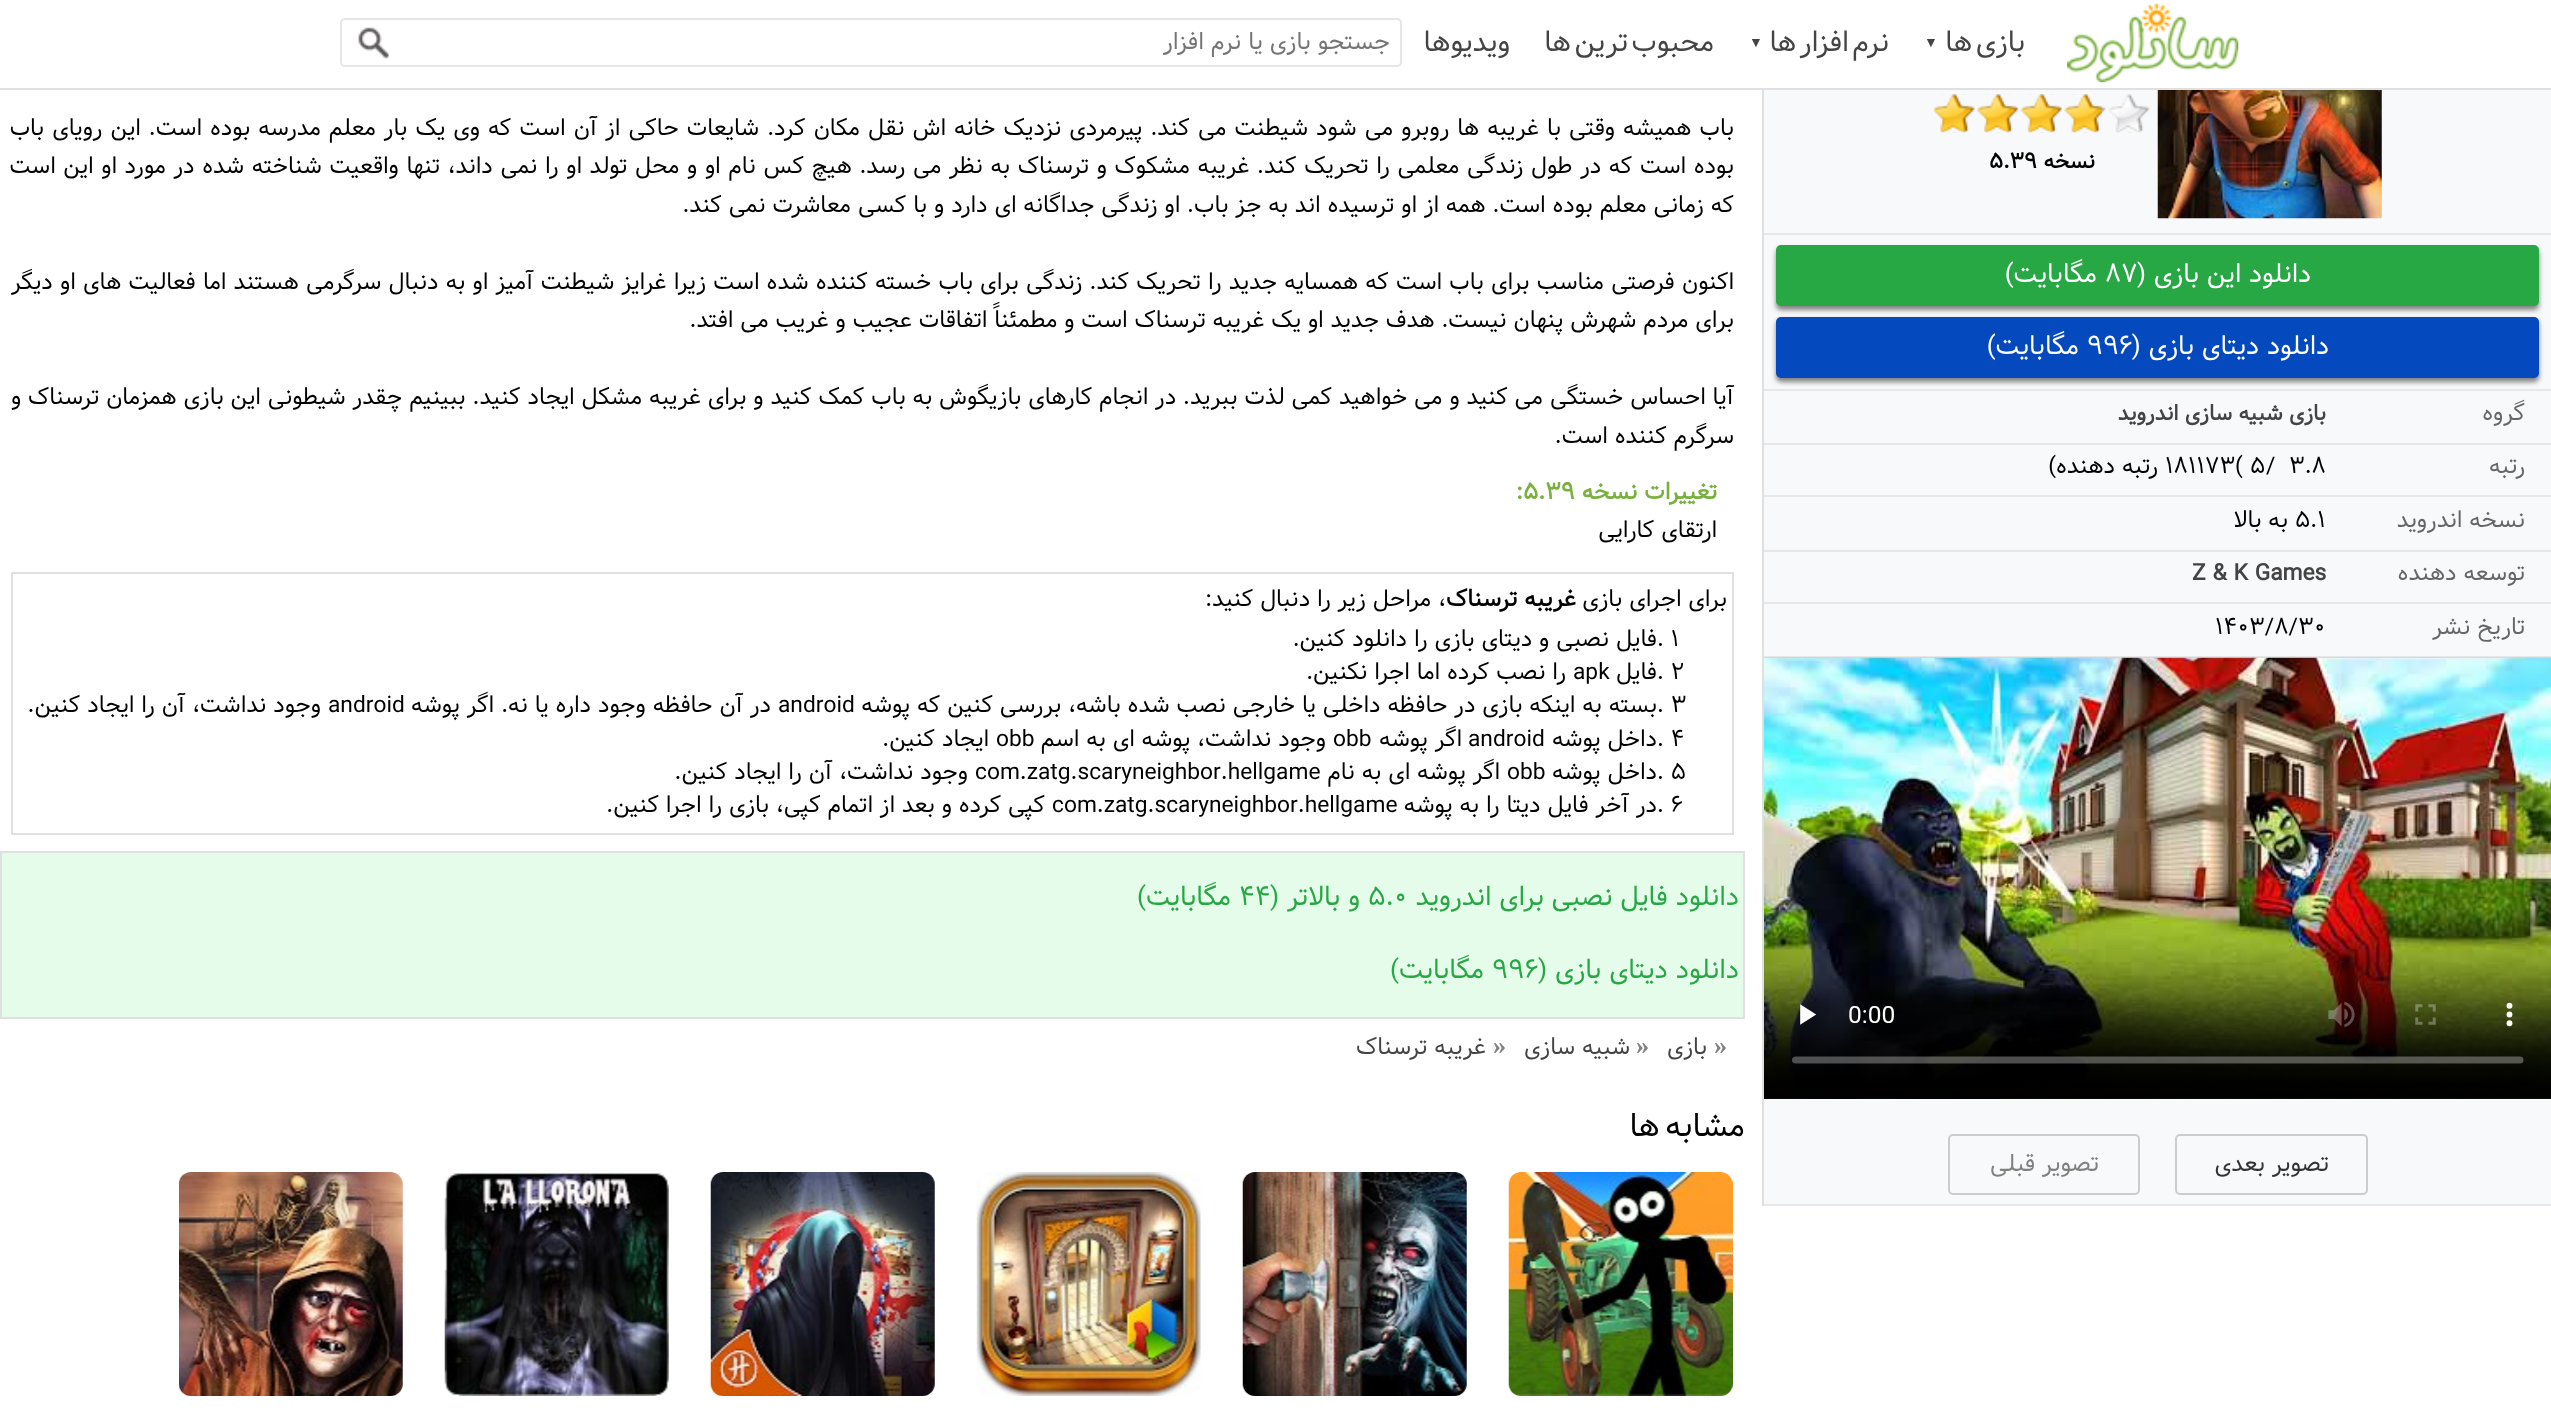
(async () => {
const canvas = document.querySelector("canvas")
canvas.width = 2551
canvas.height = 1413
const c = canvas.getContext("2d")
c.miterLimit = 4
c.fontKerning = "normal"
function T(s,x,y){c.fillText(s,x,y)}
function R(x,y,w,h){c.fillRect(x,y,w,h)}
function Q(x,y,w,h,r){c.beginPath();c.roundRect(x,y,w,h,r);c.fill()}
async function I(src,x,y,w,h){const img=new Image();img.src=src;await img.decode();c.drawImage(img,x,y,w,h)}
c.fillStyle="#fff"
R(0,0,2551,1413)
c.fillStyle="#e0e0e0"
R(0,88,2551,2)
await I("1.png",2066,3,173,80)
c.wordSpacing="-5px"
c.direction="rtl"
c.font="28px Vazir"
c.fillStyle="#444"
T("بازی ها",2025,51)
c.wordSpacing="0px"
c.direction="ltr"
c.font="14px Liberation Serif"
T("▼",1924,47)
c.wordSpacing="-5px"
c.direction="rtl"
c.font="28px Vazir"
T("نرم افزار ها",1889,51)
c.wordSpacing="0px"
c.direction="ltr"
c.font="14px Liberation Serif"
T("▼",1749,47)
c.wordSpacing="-5px"
c.direction="rtl"
c.font="28px Vazir"
T("محبوب ترین ها",1714,51)
c.wordSpacing="0px"
T("ویدیوها",1510,51)
c.beginPath()
c.roundRect(341,19,1060,47,4)
c.strokeStyle="#e6e6e6"
c.lineWidth=2
c.stroke()
c.font="23.25px Vazir"
c.fillStyle="#757575"
T("جستجو بازی یا نرم افزار",1390,49)
await I("2.png",358,27,31,32)
c.fillStyle="#f8f9fa"
R(1764,90,787,1114)
c.fillStyle="#e0e0e0"
R(1762,90,2,1116)
c.fillStyle="#e7e7e7"
R(1764,233,787,2)
await I("3.png",2157,90,225,129)
await I("4.png",1934,94,216,39)
await I("5.png",1934,94,168,39)
c.font="bold 21px Vazir"
c.fillStyle="#000"
T("نسخه",2095,168)
c.direction="ltr"
T("5.39",1989,168)
c.fillStyle="#e7e7e7"
R(1764,389,787,2)
c.fillStyle="#808080"
c.filter="blur(2.5px)"
c.beginPath()
c.roundRect(1776,249,763,61,5)
c.fill()
c.filter="none"
c.fillStyle="#28a745"
Q(1776,245,763,61,5)
c.direction="rtl"
c.font="25.75px Vazir"
c.fillStyle="#fff"
T("دانلود این بازی (",2311,282)
c.direction="ltr"
T("87",2105,282)
c.direction="rtl"
T("مگابایت)",2097,282)
c.fillStyle="#808080"
c.filter="blur(2.5px)"
c.beginPath()
c.roundRect(1776,320,763,62,5)
c.fill()
c.filter="none"
c.fillStyle="#0449bd"
Q(1776,317,763,61,5)
c.fillStyle="#fff"
T("دانلود دیتای بازی (",2329,354)
c.direction="ltr"
T("996",2087,354)
c.direction="rtl"
T("مگابایت)",2079,354)
c.fillStyle="#e7e7e7"
R(1764,443,787,2)
c.font="22.75px Vazir"
c.fillStyle="#666"
T("گروه",2525,420)
c.font="bold 21px Vazir"
c.fillStyle="#444"
T("بازی شبیه سازی اندروید",2326,420)
c.fillStyle="#e7e7e7"
R(1764,495,787,2)
c.font="22.75px Vazir"
c.fillStyle="#666"
T("رتبه",2525,473)
c.direction="ltr"
c.fillStyle="#000"
T("3.8",2289,473)
T("/",2266,473)
T("5",2250,473)
T("(",2235,473)
T("181173",2165,473)
c.direction="rtl"
T("رتبه دهنده)",2158,473)
c.fillStyle="#e7e7e7"
R(1764,550,787,2)
c.fillStyle="#666"
T("نسخه اندروید",2525,527)
c.direction="ltr"
c.fillStyle="#000"
T("5.1",2295,527)
c.direction="rtl"
T("به بالا",2288,527)
c.fillStyle="#e7e7e7"
R(1764,602,787,2)
c.fillStyle="#666"
T("توسعه دهنده",2525,580)
c.direction="ltr"
c.font="bold 22.75px Vazir"
c.fillStyle="#444"
T("Z & K Games",2192,580)
c.fillStyle="#e7e7e7"
R(1764,656,787,2)
c.direction="rtl"
c.font="22.75px Vazir"
c.fillStyle="#666"
T("تاریخ نشر",2525,634)
c.direction="ltr"
c.fillStyle="#000"
T("1403/8/30",2215,634)
c.fillStyle="#e7e7e7"
R(1764,1204,787,2)
c.fillStyle="#000"
R(1764,1098,787,1)
await I("6.png",1764,657,787,442)
c.beginPath()
c.roundRect(2176,1135,191,59,4)
c.strokeStyle="#ccc"
c.stroke()
c.direction="rtl"
c.font="23.25px Vazir"
c.fillStyle="#333"
T("تصویر بعدی",2329,1171)
c.beginPath()
c.roundRect(1949,1135,190,59,4)
c.stroke()
c.fillStyle="#808080"
T("تصویر قبلی",2099,1171)
c.wordSpacing="1.15px"
c.font="22.75px Vazir"
c.fillStyle="#000"
T("باب همیشه وقتی با غریبه ها روبرو می شود شیطنت می کند. پیرمردی نزدیک خانه اش نقل مکان کرد. شایعات حاکی از آن است که وی یک بار معلم مدرسه بوده است. این رویای باب",1734,135)
c.wordSpacing="0.75px"
T("بوده است که در طول زندگی معلمی را تحریک کند. غریبه مشکوک و ترسناک به نظر می رسد. هیچ کس نام او و محل تولد او را نمی داند، تنها واقعیت شناخته شده در مورد او این است",1734,173)
c.wordSpacing="0px"
T("که زمانی معلم بوده است. همه از او ترسیده اند به جز باب. او زندگی جداگانه ای دارد و با کسی معاشرت نمی کند.",1734,212)
c.wordSpacing="0.3px"
T("اکنون فرصتی مناسب برای باب است که همسایه جدید را تحریک کند. زندگی برای باب خسته کننده شده است زیرا غرایز شیطنت آمیز او به دنبال سرگرمی هستند اما فعالیت های او دیگر",1734,289)
c.wordSpacing="0px"
T("برای مردم شهرش پنهان نیست. هدف جدید او یک غریبه ترسناک است و مطمئناً اتفاقات عجیب و غریب می افتد.",1734,327)
T("آیا احساس خستگی می کنید و می خواهید کمی لذت ببرید. در انجام کارهای بازیگوش به باب کمک کنید و برای غریبه مشکل ایجاد کنید. ببینیم چقدر شیطونی این بازی همزمان ترسناک و",1734,404)
T("سرگرم کننده است.",1734,443)
c.font="bold 22.75px Vazir"
c.fillStyle="#7ab040"
T("تغییرات نسخه",1717,499)
c.direction="ltr"
T(":5.39",1516,499)
c.direction="rtl"
c.font="22.75px Vazir"
c.fillStyle="#000"
T("ارتقای کارایی",1717,537)
c.strokeStyle="#e0e0e0"
c.strokeRect(12,573,1721,261)
T("برای اجرای بازی",1727,606)
c.font="bold 22.75px Vazir"
T("غریبه ترسناک",1576,606)
c.font="22.75px Vazir"
T("، مراحل زیر را دنبال کنید:",1446,606)
c.direction="ltr"
T(". 1",1657,646)
c.direction="rtl"
T("فایل نصبی و دیتای بازی را دانلود کنین.",1657,646)
c.direction="ltr"
T(". 2",1657,679)
c.direction="rtl"
T("فایل",1657,679)
c.direction="ltr"
T("apk",1573,679)
c.direction="rtl"
T("را نصب کرده اما اجرا نکنین.",1566,679)
c.direction="ltr"
T(". 3",1657,712)
c.direction="rtl"
T("بسته به اینکه بازی در حافظه داخلی یا خارجی نصب شده باشه، بررسی کنین که پوشه",1657,712)
c.direction="ltr"
T("android",778,712)
c.direction="rtl"
T("در آن حافظه وجود داره یا نه.",771,712)
T("اگر پوشه",494,712)
c.direction="ltr"
T("android",328,712)
c.direction="rtl"
T("وجود نداشت، آن را ایجاد کنین.",321,712)
c.direction="ltr"
T(". 4",1657,746)
c.direction="rtl"
T("داخل پوشه",1657,746)
c.direction="ltr"
T("android",1468,746)
c.direction="rtl"
T("اگر پوشه",1462,746)
c.direction="ltr"
T("obb",1333,746)
c.direction="rtl"
T("وجود نداشت، پوشه ای به اسم",1326,746)
c.direction="ltr"
T("obb",996,746)
c.direction="rtl"
T("ایجاد کنین.",989,746)
c.direction="ltr"
T(". 5",1657,779)
c.direction="rtl"
T("داخل پوشه",1657,779)
c.direction="ltr"
T("obb",1507,779)
c.direction="rtl"
T("اگر پوشه ای به نام",1500,779)
c.direction="ltr"
T("com.zatg.scaryneighbor.hellgame",975,779)
c.direction="rtl"
T("وجود نداشت، آن را ایجاد کنین.",968,779)
c.direction="ltr"
T(". 6",1657,812)
c.direction="rtl"
T("در آخر فایل دیتا را به پوشه",1657,812)
c.direction="ltr"
T("com.zatg.scaryneighbor.hellgame",1052,812)
c.direction="rtl"
T("کپی کرده و بعد از اتمام کپی، بازی را اجرا کنین.",1045,812)
c.fillStyle="#e4fce9"
c.beginPath()
c.rect(1,852,1743,166)
c.fill()
c.stroke()
c.font="26.25px Vazir"
c.fillStyle="#28a745"
T("دانلود فایل نصبی",1739,905)
T("برای اندروید",1544,905)
c.direction="ltr"
T("5.0",1368,905)
c.direction="rtl"
T("و بالاتر (",1360,905)
c.direction="ltr"
T("44",1239,905)
c.direction="rtl"
T("مگابایت)",1231,905)
T("دانلود دیتای بازی (",1739,978)
c.direction="ltr"
T("996",1492,978)
c.direction="rtl"
T("مگابایت)",1484,978)
c.direction="ltr"
c.font="bold 26.25px Liberation Serif"
c.fillStyle="#808080"
T("»",1714,1054)
c.direction="rtl"
c.font="22.75px Vazir"
c.fillStyle="#444"
T("بازی",1707,1054)
c.direction="ltr"
c.font="bold 26.25px Liberation Serif"
c.fillStyle="#808080"
T("»",1636,1054)
c.direction="rtl"
c.font="22.75px Vazir"
c.fillStyle="#444"
T("شبیه سازی",1630,1054)
c.direction="ltr"
c.font="bold 26.25px Liberation Serif"
c.fillStyle="#808080"
T("»",1493,1054)
c.direction="rtl"
c.font="22.75px Vazir"
c.fillStyle="#444"
T("غریبه ترسناک",1486,1054)
c.wordSpacing="-4px"
c.font="31.5px Vazir"
c.fillStyle="#000"
T("مشابه ها",1745,1136)
await I("7.png",1508,1172,225,224)
await I("8.png",1242,1172,225,224)
await I("9.png",976,1172,225,224)
await I("10.png",710,1172,225,224)
await I("11.png",444,1172,225,224)
await I("12.png",179,1172,224,224)
})()
